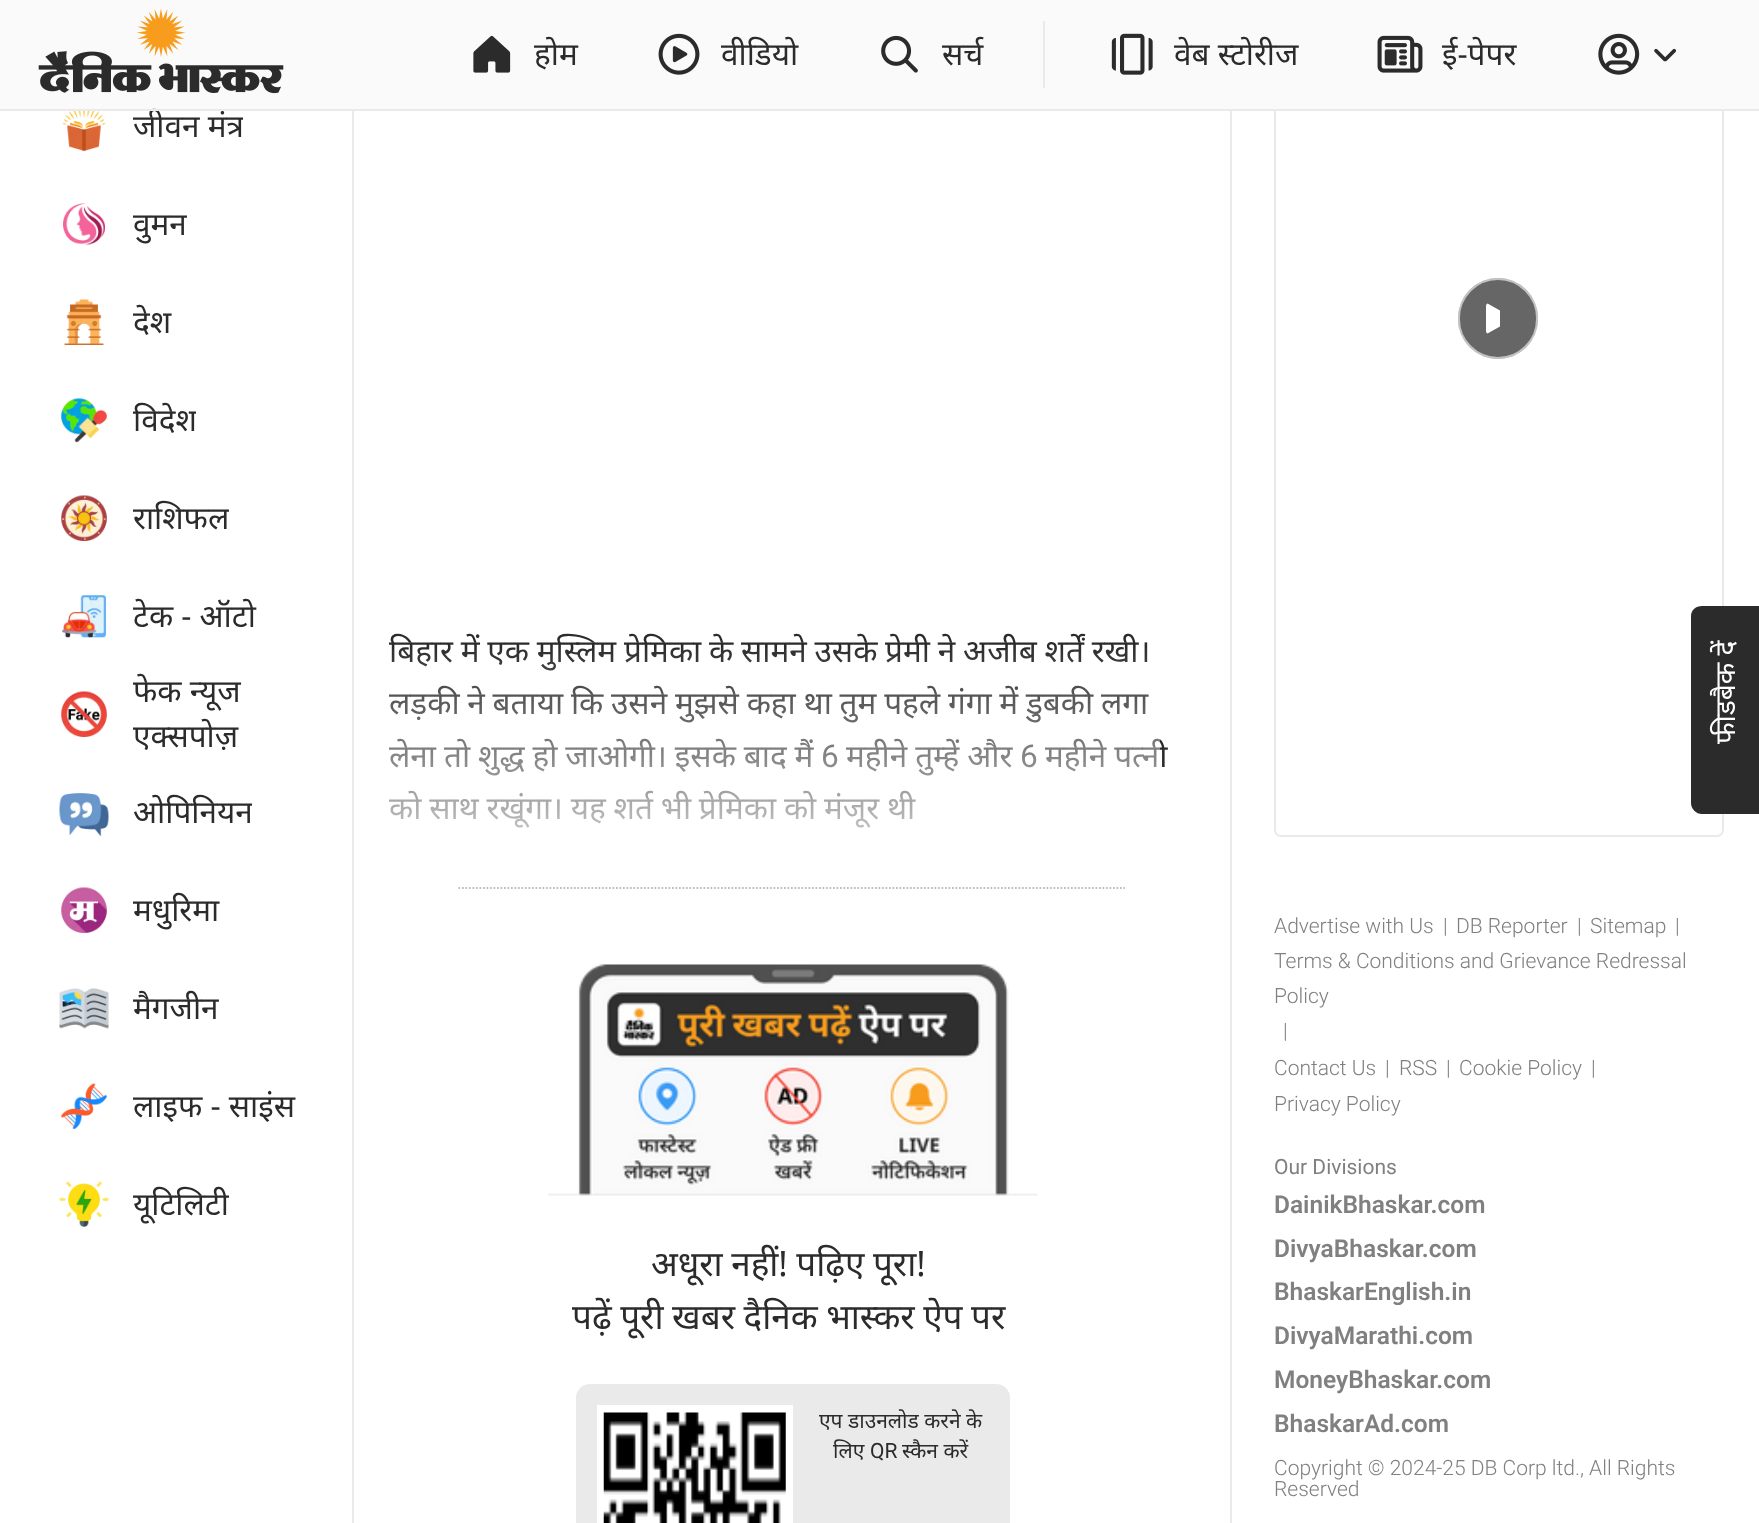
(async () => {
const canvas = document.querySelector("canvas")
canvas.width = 1759
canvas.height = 1523
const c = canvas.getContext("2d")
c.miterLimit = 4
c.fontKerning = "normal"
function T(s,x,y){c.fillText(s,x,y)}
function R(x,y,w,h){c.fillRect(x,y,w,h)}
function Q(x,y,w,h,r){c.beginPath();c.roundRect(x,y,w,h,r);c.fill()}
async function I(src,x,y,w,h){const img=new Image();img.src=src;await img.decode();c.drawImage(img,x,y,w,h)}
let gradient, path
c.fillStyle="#fff"
R(0,0,1759,1523)
c.beginPath()
c.roundRect(1275,-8,448,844,6)
c.strokeStyle="#eaeaea"
c.lineWidth=2
c.stroke()
c.fillStyle="#fafafa"
R(0,0,1759,109)
c.save()
c.beginPath()
c.rect(133,103,110,46)
c.clip()
c.font="31.5px Noto Sans"
c.fillStyle="#2b2b2b"
T("जीवन मंत्र",133,137)
c.restore()
c.fillStyle="#eaeaea"
R(0,109,1759,2)
await I("1.png",38,8,246,86)
await I("2.png",473,35,38,38)
c.font="31.5px Noto Sans"
c.fillStyle="#2b2b2b"
T("होम",534,65)
await I("3.png",658,33,42,42)
T("वीडियो",721,65)
await I("4.png",881,35,37,38)
T("सर्च",942,65)
c.fillStyle="#eaeaea"
R(1043,21,2,67)
await I("5.png",1111,33,42,42)
c.fillStyle="#2b2b2b"
T("वेब स्टोरीज",1174,65)
await I("6.png",1377,35,46,38)
T("ई-पेपर",1442,65)
await I("7.png",1598,33,42,42)
await I("8.png",1654,48,22,14)
await I("9.png",62,111,44,41)
await I("10.png",63,203,42,43)
c.save()
c.beginPath()
c.rect(133,201,54,46)
c.clip()
T("वुमन",133,235)
c.restore()
await I("11.png",64,299,41,46)
c.save()
c.beginPath()
c.rect(133,299,39,46)
c.clip()
T("देश",133,333)
c.restore()
await I("12.png",61,398,46,45)
c.save()
c.beginPath()
c.rect(133,397,63,46)
c.clip()
T("विदेश",133,431)
c.restore()
await I("13.png",61,495,46,46)
c.save()
c.beginPath()
c.rect(133,495,96,46)
c.clip()
T("राशिफल",133,529)
c.restore()
await I("14.png",62,595,44,43)
c.save()
c.beginPath()
c.rect(133,593,124,46)
c.clip()
T("टेक - ऑटो",133,627)
c.restore()
await I("15.png",61,691,46,46)
c.save()
c.beginPath()
c.rect(133,669,175,91)
c.clip()
T("फेक न्यूज",133,702)
c.restore()
T("एक्सपोज़",133,747)
await I("16.png",59,793,50,44)
c.save()
c.beginPath()
c.rect(133,789,119,46)
c.clip()
T("ओपिनियन",133,823)
c.restore()
await I("17.png",61,887,46,46)
T("मधुरिमा",133,921)
await I("18.png",59,988,50,41)
c.save()
c.beginPath()
c.rect(133,985,86,46)
c.clip()
T("मैगजीन",133,1019)
c.restore()
await I("19.png",61,1083,46,46)
c.save()
c.beginPath()
c.rect(133,1083,163,46)
c.clip()
T("लाइफ - साइंस",133,1117)
c.restore()
await I("20.png",59,1181,50,46)
c.save()
c.beginPath()
c.rect(133,1181,96,46)
c.clip()
T("यूटिलिटी",133,1215)
c.restore()
c.fillStyle="#eaeaea"
R(1230,111,2,1412)
R(352,111,2,1412)
c.wordSpacing="-0.4px"
c.fillStyle="#2b2b2b"
T("बिहार में एक मुस्लिम प्रेमिका के सामने उसके प्रेमी ने अजीब शर्तें रखी।",389,662)
T("लड़की ने बताया कि उसने मुझसे कहा था तुम पहले गंगा में डुबकी लगा",389,714)
c.wordSpacing="-0.25px"
T("लेना तो शुद्ध हो जाओगी। इसके बाद मैं",389,767)
c.wordSpacing="0px"
c.font="31.5px Roboto"
T("6",821,767)
c.wordSpacing="-0.25px"
c.font="31.5px Noto Sans"
T("महीने तुम्हें और",846,767)
c.wordSpacing="0px"
c.font="31.5px Roboto"
T("6",1020,767)
c.wordSpacing="-0.25px"
c.font="31.5px Noto Sans"
T("महीने पत्नी",1045,767)
c.wordSpacing="-0.4px"
T("को साथ रखूंगा। यह शर्त भी प्रेमिका को मंजूर थी",389,819)
gradient = c.createLinearGradient(1196,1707,1196,643)
gradient.addColorStop(.75,"#fff")
gradient.addColorStop(1,"#ffffff00")
c.fillStyle = gradient
R(389,649,771,179)
path = new Path2D("M458.5 888h666.5")
c.strokeStyle="#bebebe"
c.lineWidth=1.8
c.setLineDash([1.75,1.75])
c.stroke(path)
await I("21.png",548,964,490,232)
c.wordSpacing="-0.5px"
c.font="35px Noto Sans"
c.fillStyle="#2b2b2b"
T("अधूरा नहीं! पढ़िए पूरा!",651,1276)
T("पढ़ें पूरी खबर दैनिक भास्कर ऐप पर",572,1329)
c.fillStyle="#eaeaea"
Q(576,1384,434,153,14)
c.fillStyle="#fff"
R(597,1405,196,118)
await I("22.png",603,1412,183,111)
c.wordSpacing="0px"
c.font="21px Noto Sans"
c.fillStyle="#2b2b2b"
T("एप डाउनलोड करने के",819,1428)
T("लिए",833,1458)
c.font="21px Roboto"
T("QR",870,1458)
c.font="21px Noto Sans"
T("स्कैन करें",902,1458)
c.fillStyle="#666"
Q(1458,278,80,81,40)
c.beginPath()
c.roundRect(1459,279,78,79,39)
c.strokeStyle="#ffffff99"
c.lineWidth=2
c.setLineDash([])
c.stroke()
c.fillStyle="#fff"
path = new Path2D("M1487.5 303.5l12.5 7v16l-12.5 7c-1-.5-1.5-1.5-1.5-2.5v-25c0-1 .5-2 1.5-2.5z")
c.fill(path)
c.font="300 21px Roboto"
c.fillStyle="#808080"
T("Advertise with Us",1274,933)
T("|",1443,933)
T("DB Reporter",1456,933)
T("|",1577,933)
T("Sitemap",1590,933)
T("|",1675,933)
T("Terms & Conditions and Grievance Redressal",1274,968)
T("Policy",1274,1003)
T("|",1283,1038)
T("Contact Us",1274,1075)
T("|",1385,1075)
T("RSS",1399,1075)
T("|",1446,1075)
T("Cookie Policy",1459,1075)
T("|",1591,1075)
T("Privacy Policy",1274,1111)
c.font="21px Roboto"
T("Our Divisions",1274,1174)
c.font="600 24.5px Roboto"
T("DainikBhaskar.com",1274,1213)
T("DivyaBhaskar.com",1274,1257)
T("BhaskarEnglish.in",1274,1300)
T("DivyaMarathi.com",1274,1344)
T("MoneyBhaskar.com",1274,1388)
T("BhaskarAd.com",1274,1432)
c.font="300 21px Roboto"
T("Copyright © 2024-25 DB Corp ltd., All Rights",1274,1475)
T("Reserved",1274,1496)
c.fillStyle="#2b2b2b"
path = new Path2D("M1691 803v-187c0-6 5-10 11-10h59v208h-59c-6 0-11-5-11-11z")
c.fill(path)
c.font="28px Noto Sans"
c.fillStyle="#fff"
c.save()
c.translate(1735,744)
c.rotate(-90 * Math.PI / 180)
c.fillText("फीडबैक दें",0,0)
c.restore()
})()
